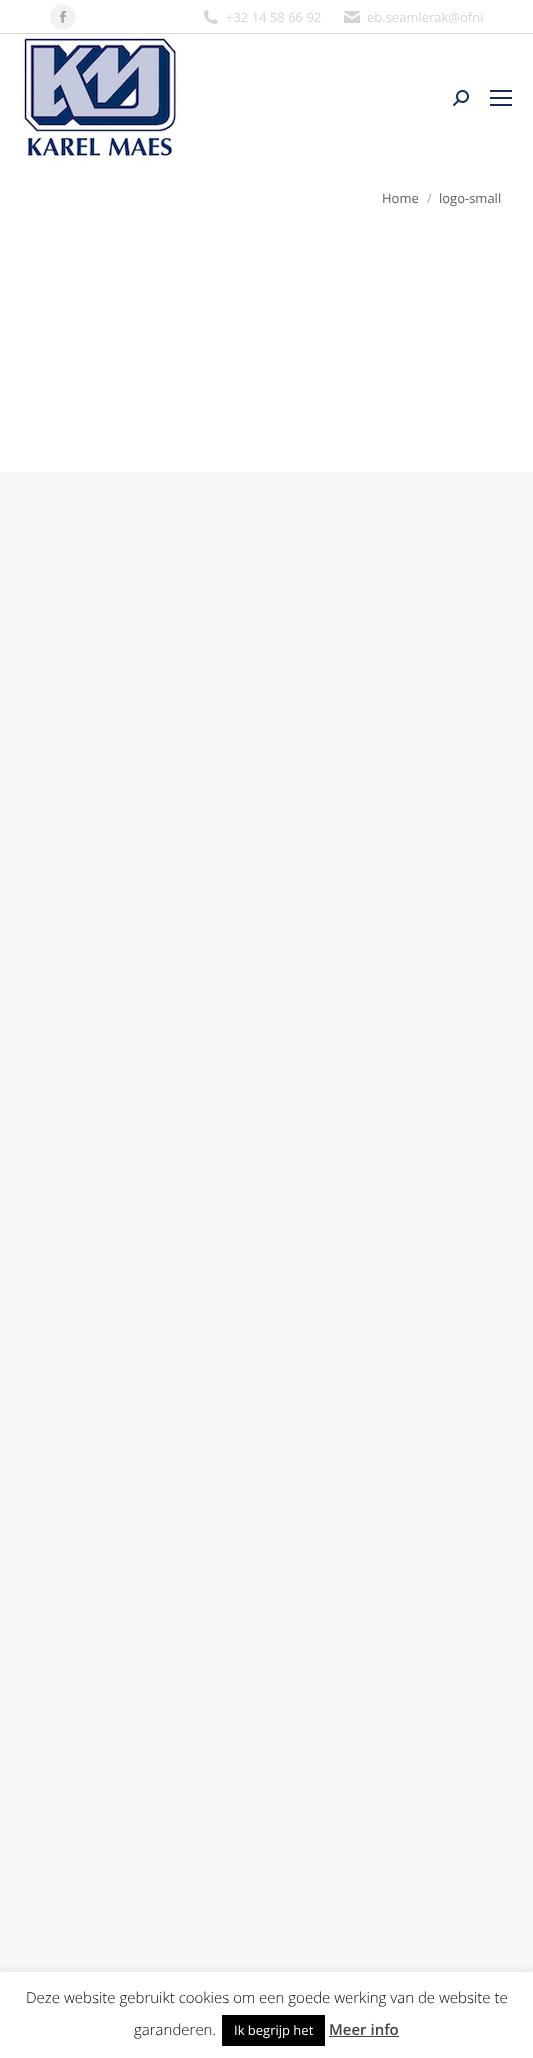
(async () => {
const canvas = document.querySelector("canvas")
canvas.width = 533
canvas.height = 2058
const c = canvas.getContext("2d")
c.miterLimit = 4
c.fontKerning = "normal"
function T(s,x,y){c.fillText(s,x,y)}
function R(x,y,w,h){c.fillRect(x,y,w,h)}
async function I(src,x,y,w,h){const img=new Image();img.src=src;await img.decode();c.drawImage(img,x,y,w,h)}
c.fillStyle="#f7f7f7"
R(0,0,533,2058)
c.fillStyle="#fff"
R(0,0,533,472)
c.fillStyle="#f2f2f2"
c.beginPath()
c.arc(63,17,13,0,7)
c.fill()
await I("1.png",60,11,6,12)
await I("2.png",204,10,14,14)
c.font="13px Open Sans"
c.fillStyle="#d5d5d5"
T("+32 14 58 66 92",226,22)
await I("3.png",344,11,16,12)
T("eb.seamlerak@ofni",367,22)
c.fillStyle="#dbdbdb"
R(0,33,533,1)
await I("4.png",20,34,160,128)
await I("5.png",453,90,16,16)
c.fillStyle="#142a5b"
R(490,90,22,2)
R(490,97,22,2)
R(490,104,22,2)
c.fillStyle="#5b5b5b"
T("Home",382,203)
c.fillStyle="#adadad"
T("/",427,203)
c.fillStyle="#5b5b5b"
T("logo-small",439,203)
c.fillStyle="#acabab4d"
c.filter="blur(5px)"
c.beginPath()
c.rect(0,1971,533,86)
c.fill()
c.filter="none"
c.fillStyle="#fff"
R(0,1972,533,86)
c.font="300 15px Open Sans"
c.fillStyle="#000"
T("Deze website gebruikt cookies om een goede werking van de website te",26,2003)
T("garanderen.",134,2035)
R(222,2015,103,31)
c.font="13px Open Sans"
c.fillStyle="#fff"
T("Ik begrijp het",234,2035)
c.font="600 15px Open Sans"
c.fillStyle="#444"
T("Meer info",329,2035)
R(329,2036,70,1)
})()
